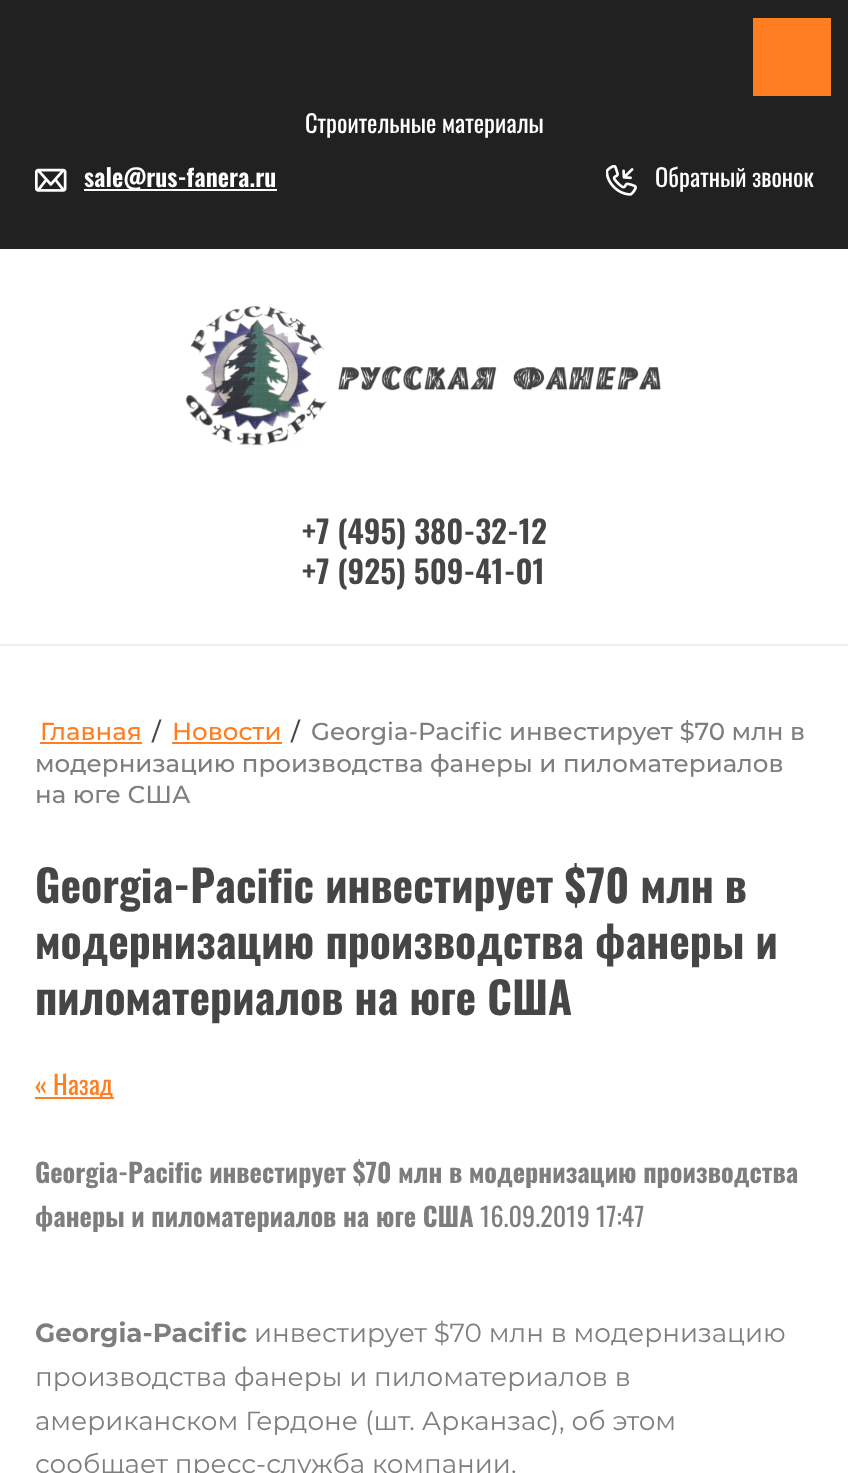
(async () => {
const canvas = document.querySelector("canvas")
canvas.width = 848
canvas.height = 1473
const c = canvas.getContext("2d")
c.miterLimit = 4
c.fontKerning = "normal"
function T(s,x,y){c.fillText(s,x,y)}
function R(x,y,w,h){c.fillRect(x,y,w,h)}
async function I(src,x,y,w,h){const img=new Image();img.src=src;await img.decode();c.drawImage(img,x,y,w,h)}
c.fillStyle="#fff"
R(0,0,848,1473)
c.fillStyle="#212121"
R(0,0,848,249)
c.fillStyle="#ff7e21"
R(753,18,78,78)
c.font="24.5px Oswald"
c.fillStyle="#fff"
T("Строительные материалы",305,133)
await I("1.png",35,168,32,24)
R(84,189,193,2)
c.font="600 24.5px Oswald"
T("sale@rus-fanera.ru",84,187)
await I("2.png",606,165,31,31)
c.font="24.5px Oswald"
T("Обратный звонок",655,187)
await I("3.png",185,305,476,141)
c.font="600 31.5px Oswald"
c.fillStyle="#464646"
T("+7 (495) 380-32-12",302,544)
T("+7 (925) 509-41-01",302,584)
c.fillStyle="#eee"
R(0,644,848,2)
c.font="500 24.5px Montserrat"
c.fillStyle="#ff7e21"
T("Главная",40,740)
R(40,742,102,2)
c.fillStyle="#464646"
T("/",152,740)
c.fillStyle="#ff7e21"
T("Новости",172,740)
R(172,742,110,2)
c.fillStyle="#464646"
T("/",291,740)
c.fillStyle="#7e7e7e"
T("Georgia-Pacific инвестирует $70 млн в",311,740)
T("модернизацию производства фанеры и пиломатериалов",35,772)
T("на юге США",35,803)
c.font="bold 43.75px Oswald"
c.fillStyle="#464646"
T("Georgia-Pacific инвестирует $70 млн в",35,903)
T("модернизацию производства фанеры и",35,959)
T("пиломатериалов на юге США",35,1015)
c.fillStyle="#ff7e21"
R(35,1097,79,2)
c.font="26.25px Oswald"
T("« Назад",35,1095)
c.font="bold 26.25px Oswald"
c.fillStyle="#7e7e7e"
T("Georgia-Pacific инвестирует $70 млн в модернизацию производства",35,1183)
T("фанеры и пиломатериалов на юге США",35,1227)
c.font="26.25px Oswald"
T("16.09.2019 17:47",480,1227)
c.font="bold 26.25px Montserrat"
T("Georgia-Pacific",35,1342)
c.font="26.25px Montserrat"
T("инвестирует $70 млн в модернизацию",254,1342)
T("производства фанеры и пиломатериалов в",35,1386)
T("американском Гердоне (шт. Арканзас), об этом",35,1430)
T("сообщает пресс-служба компании.",35,1473)
})()
